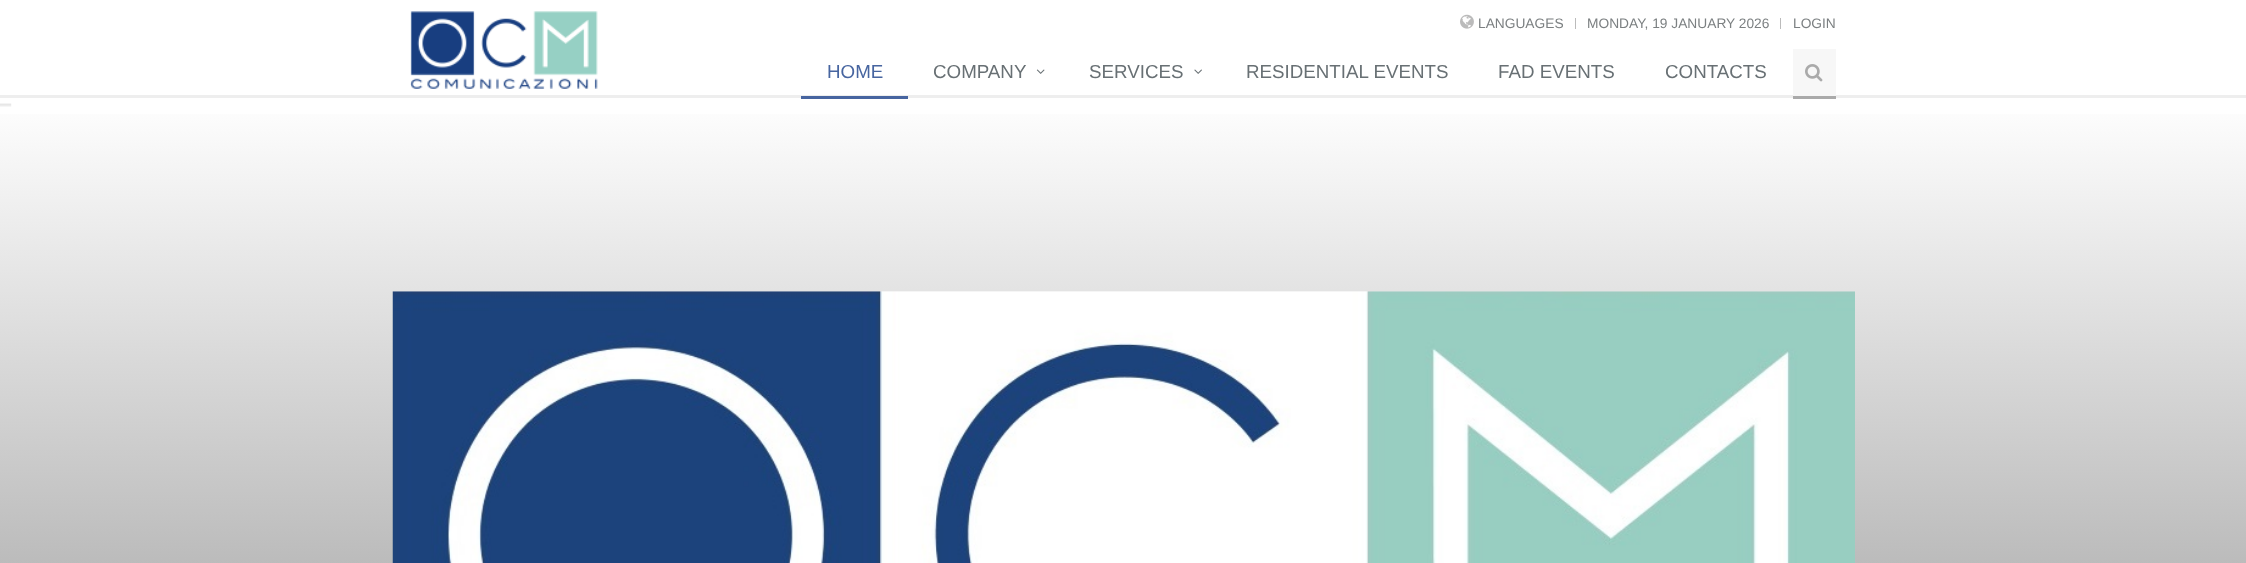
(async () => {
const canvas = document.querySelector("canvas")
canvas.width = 2246
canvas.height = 563
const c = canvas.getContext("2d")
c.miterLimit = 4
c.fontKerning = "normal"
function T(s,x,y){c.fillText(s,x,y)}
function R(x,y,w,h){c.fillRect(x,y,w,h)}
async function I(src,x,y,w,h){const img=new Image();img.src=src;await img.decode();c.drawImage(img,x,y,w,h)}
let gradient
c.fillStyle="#fff"
R(0,0,2246,563)
c.fillStyle="#eee"
R(0,95,2246,3)
await I("1.png",1460,14,14,15)
c.font="13.75px Liberation Sans"
c.fillStyle="#7c8082"
T("LANGUAGES",1478,28)
c.fillStyle="#bbb"
R(1575,18,1,11)
c.fillStyle="#7c8082"
T("MONDAY, 19 JANUARY 2026",1587,28)
c.fillStyle="#bbb"
R(1780,18,1,11)
c.fillStyle="#7c8082"
T("LOGIN",1793,28)
await I("2.png",410,11,188,78)
c.fillStyle="#4765a0"
R(801,96,107,3)
c.font="18.75px Liberation Sans"
T("HOME",827,78)
c.fillStyle="#687074"
T("COMPANY",933,78)
await I("3.png",1036,69,9,5)
T("SERVICES",1089,78)
await I("4.png",1194,69,8,5)
T("RESIDENTIAL EVENTS",1246,78)
T("FAD EVENTS",1498,78)
T("CONTACTS",1665,78)
c.fillStyle="#f7f7f7"
R(1793,49,43,47)
c.fillStyle="#aaa"
R(1793,96,43,3)
await I("5.png",1805,64,18,18)
await I("6.png",0,103,12,4)
gradient = c.createLinearGradient(1123,97,1123,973)
gradient.addColorStop(0,"#fff")
gradient.addColorStop(1,"#808080")
c.fillStyle = gradient
R(0,114,2246,449)
c.fillStyle="#e9e9e9"
R(393,291,487,1)
await I("7.png",392,291,488,272)
R(880,291,488,272)
await I("8.png",880,291,488,272)
R(1368,291,487,1)
await I("9.png",1367,291,488,272)
})()
